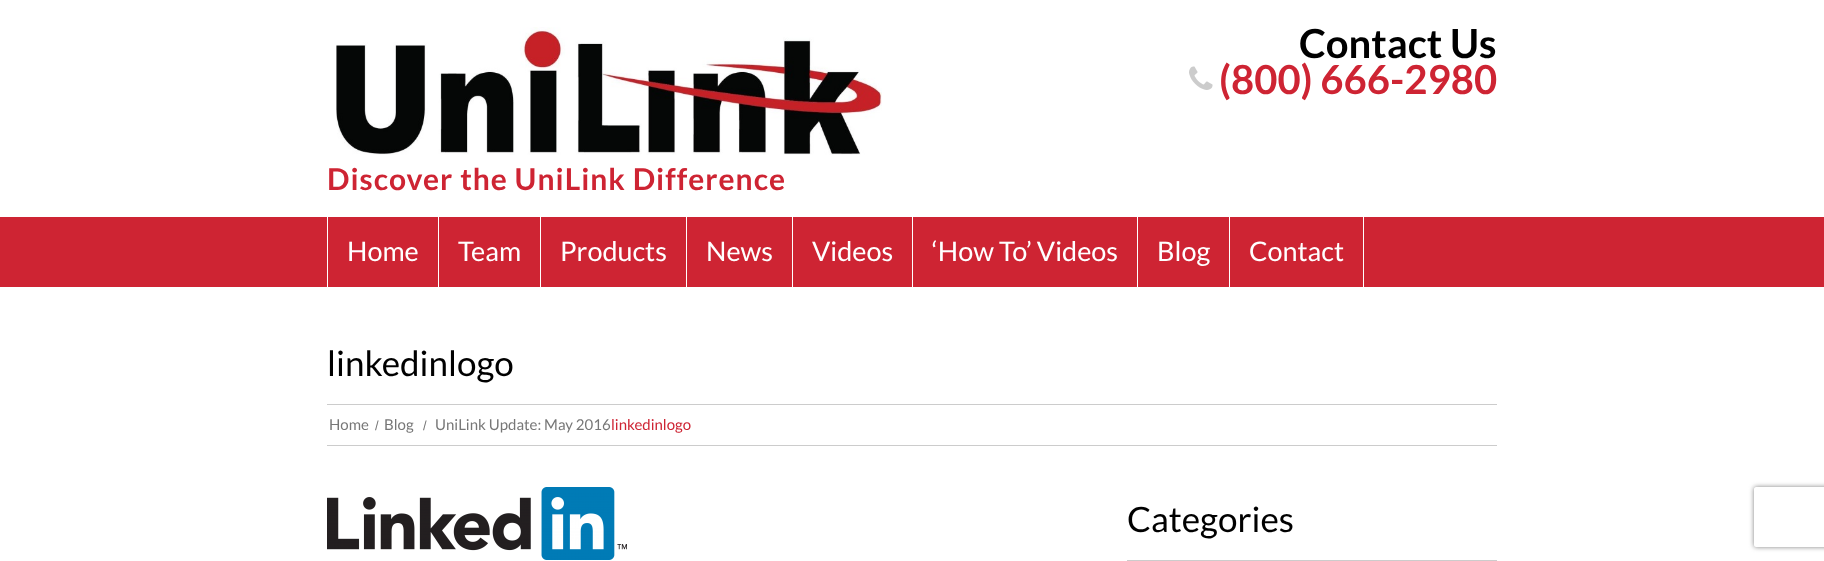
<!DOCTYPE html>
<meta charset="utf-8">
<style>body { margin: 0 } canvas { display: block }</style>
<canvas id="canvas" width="1824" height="561"></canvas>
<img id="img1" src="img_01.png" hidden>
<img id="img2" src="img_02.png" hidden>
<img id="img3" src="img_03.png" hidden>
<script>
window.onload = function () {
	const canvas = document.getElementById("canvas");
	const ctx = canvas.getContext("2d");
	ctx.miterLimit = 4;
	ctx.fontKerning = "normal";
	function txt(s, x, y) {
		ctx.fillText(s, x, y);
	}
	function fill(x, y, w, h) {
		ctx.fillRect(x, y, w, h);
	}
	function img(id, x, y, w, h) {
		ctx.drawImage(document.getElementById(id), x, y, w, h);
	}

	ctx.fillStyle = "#FFFFFF";
	fill(0, 0, 1824, 561);
	img("img1", 1189, 66, 24, 24);
	img("img2", 336, 27, 546, 128);
	ctx.fillStyle = "#CE2433";
	fill(0, 217, 1824, 70);
	ctx.fillStyle = "#FFFFFF";
	fill(438, 217, 1, 70);
	fill(327, 217, 1, 70);
	fill(540, 217, 1, 70);
	fill(686, 217, 1, 70);
	fill(792, 217, 1, 70);
	fill(912, 217, 1, 70);
	fill(1137, 217, 1, 70);
	fill(1229, 217, 1, 70);
	fill(1363, 217, 1, 70);
	ctx.fillStyle = "#CCCCCC";
	fill(327, 445, 1170, 1);
	fill(327, 404, 1170, 1);
	img("img3", 327, 487, 300, 73);
	fill(1127, 560, 370, 1);
	ctx.save();
	ctx.beginPath();
	ctx.moveTo(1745, 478);
	ctx.lineTo(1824, 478);
	ctx.lineTo(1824, 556);
	ctx.lineTo(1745, 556);
	ctx.closePath();
	ctx.moveTo(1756, 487);
	ctx.lineTo(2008, 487);
	ctx.bezierCurveTo(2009, 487, 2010, 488, 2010, 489);
	ctx.lineTo(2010, 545);
	ctx.bezierCurveTo(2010, 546, 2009, 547, 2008, 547);
	ctx.lineTo(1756, 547);
	ctx.bezierCurveTo(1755, 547, 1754, 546, 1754, 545);
	ctx.lineTo(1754, 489);
	ctx.bezierCurveTo(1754, 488, 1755, 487, 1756, 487);
	ctx.closePath();
	ctx.clip("evenodd");
	ctx.fillStyle = "#808080";
	ctx.filter = "blur(2.5px)";
	ctx.beginPath();
	ctx.roundRect(1754, 487, 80, 60, 2);
	ctx.fill();
	ctx.filter = "none";
	ctx.restore();
	ctx.font = "bold 40px Lato";
	ctx.fillStyle = "#000000";
	txt("Contact Us", 1299, 58);
	ctx.fillStyle = "#CE2433";
	txt("(800) 666-2980", 1219, 94);
	ctx.letterSpacing = "1px";
	ctx.font = "bold 30px Lato";
	txt("Discover the UniLink Difference", 327, 190);
	ctx.letterSpacing = "0px";
	ctx.font = "27px Lato";
	ctx.fillStyle = "#FFFFFF";
	txt("Home", 347, 261);
	txt("Team", 458, 261);
	txt("Products", 560, 261);
	txt("News", 706, 261);
	txt("Videos", 812, 261);
	txt("‘How To’ Videos", 932, 261);
	txt("Blog", 1157, 261);
	txt("Contact", 1249, 261);
	ctx.font = "35px Lato";
	ctx.fillStyle = "#000000";
	txt("linkedinlogo", 327, 376);
	ctx.font = "15px Lato";
	ctx.fillStyle = "#777777";
	txt("Home", 329, 430);
	ctx.font = "13px Liberation Sans";
	txt("/", 375, 430);
	ctx.font = "15px Lato";
	txt("Blog", 384, 430);
	ctx.font = "13px Liberation Sans";
	txt("/", 423, 430);
	ctx.font = "15px Lato";
	txt("UniLink Update: May 2016", 435, 430);
	ctx.fillStyle = "#CE2433";
	txt("linkedinlogo", 611, 430);
	ctx.font = "35px Lato";
	ctx.fillStyle = "#000000";
	txt("Categories", 1127, 532);
};
</script>
